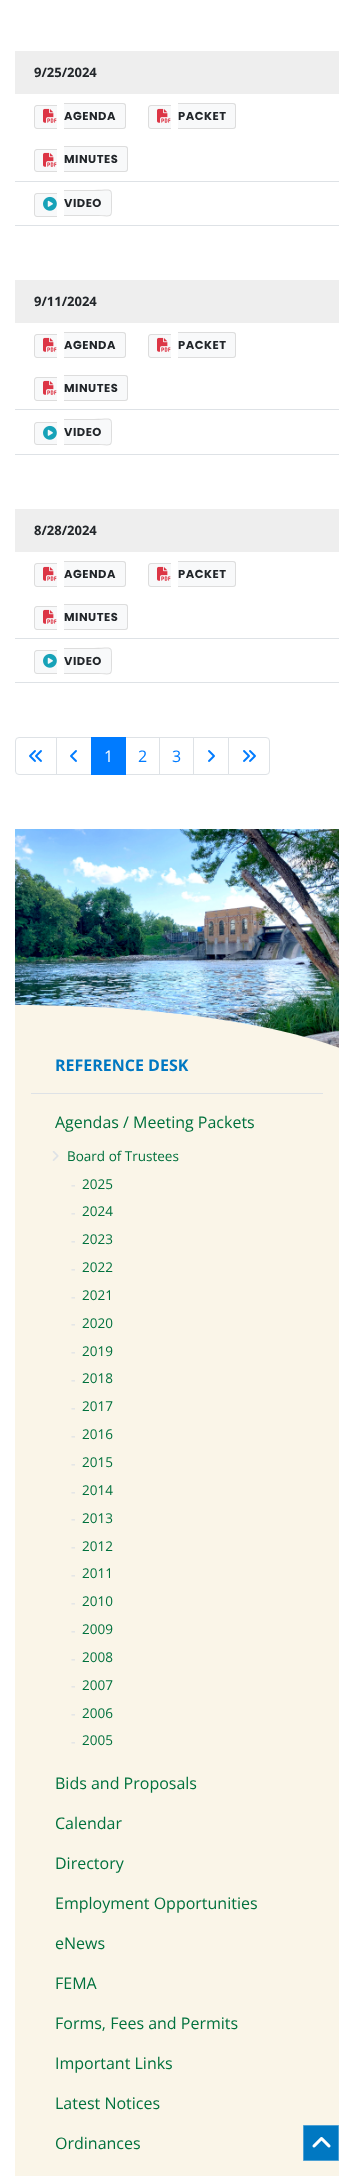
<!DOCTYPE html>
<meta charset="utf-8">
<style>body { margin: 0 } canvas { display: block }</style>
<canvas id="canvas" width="354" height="2176"></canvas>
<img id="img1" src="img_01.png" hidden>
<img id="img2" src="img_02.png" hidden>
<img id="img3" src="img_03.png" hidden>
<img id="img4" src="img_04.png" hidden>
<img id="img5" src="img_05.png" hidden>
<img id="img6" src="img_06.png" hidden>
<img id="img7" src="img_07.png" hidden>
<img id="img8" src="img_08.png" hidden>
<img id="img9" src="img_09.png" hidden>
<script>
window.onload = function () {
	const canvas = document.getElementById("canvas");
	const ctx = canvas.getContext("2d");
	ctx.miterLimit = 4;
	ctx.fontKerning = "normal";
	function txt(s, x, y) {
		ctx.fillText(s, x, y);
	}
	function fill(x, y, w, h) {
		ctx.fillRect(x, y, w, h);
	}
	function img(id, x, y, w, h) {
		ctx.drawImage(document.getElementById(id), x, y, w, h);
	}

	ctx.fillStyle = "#FFFFFF";
	fill(0, 0, 354, 2176);
	ctx.fillStyle = "#EEEEEE";
	fill(15, 51, 324, 43);
	ctx.fillStyle = "#F8F9FA";
	ctx.beginPath();
	ctx.roundRect(34, 105, 23, 24, [3, 0, 0, 3]);
	ctx.fill();
	ctx.fillStyle = "#DDDDDD";
	ctx.beginPath();
	ctx.moveTo(37, 105);
	ctx.lineTo(57, 105);
	ctx.lineTo(57, 129);
	ctx.lineTo(37, 129);
	ctx.bezierCurveTo(35.5, 129, 34, 127.5, 34, 126);
	ctx.lineTo(34, 108);
	ctx.bezierCurveTo(34, 106.5, 35.5, 105, 37, 105);
	ctx.closePath();
	ctx.moveTo(37, 106);
	ctx.lineTo(57, 106);
	ctx.lineTo(57, 128);
	ctx.lineTo(37, 128);
	ctx.bezierCurveTo(36, 128, 35, 127, 35, 126);
	ctx.lineTo(35, 108);
	ctx.bezierCurveTo(35, 107, 36, 106, 37, 106);
	ctx.closePath();
	ctx.fill("evenodd");
	ctx.fillStyle = "#F8F9FA";
	ctx.beginPath();
	ctx.roundRect(64, 103, 62, 26, [0, 3, 3, 0]);
	ctx.fill();
	ctx.fillStyle = "#DDDDDD";
	ctx.beginPath();
	ctx.moveTo(64, 103);
	ctx.lineTo(123, 103);
	ctx.bezierCurveTo(125, 103, 126, 104, 126, 106);
	ctx.lineTo(126, 126);
	ctx.bezierCurveTo(126, 128, 125, 129, 123, 129);
	ctx.lineTo(64, 129);
	ctx.closePath();
	ctx.moveTo(64, 104);
	ctx.lineTo(123, 104);
	ctx.bezierCurveTo(124, 104, 125, 105, 125, 106);
	ctx.lineTo(125, 126);
	ctx.bezierCurveTo(125, 127, 124, 128, 123, 128);
	ctx.lineTo(64, 128);
	ctx.closePath();
	ctx.fill("evenodd");
	img("img1", 43, 108, 14, 15);
	ctx.fillStyle = "#F8F9FA";
	ctx.beginPath();
	ctx.roundRect(148, 105, 23, 24, [3, 0, 0, 3]);
	ctx.fill();
	ctx.fillStyle = "#DDDDDD";
	ctx.beginPath();
	ctx.moveTo(151, 105);
	ctx.lineTo(171, 105);
	ctx.lineTo(171, 129);
	ctx.lineTo(151, 129);
	ctx.bezierCurveTo(149.5, 129, 148, 127.5, 148, 126);
	ctx.lineTo(148, 108);
	ctx.bezierCurveTo(148, 106.5, 149.5, 105, 151, 105);
	ctx.closePath();
	ctx.moveTo(151, 106);
	ctx.lineTo(171, 106);
	ctx.lineTo(171, 128);
	ctx.lineTo(151, 128);
	ctx.bezierCurveTo(150, 128, 149, 127, 149, 126);
	ctx.lineTo(149, 108);
	ctx.bezierCurveTo(149, 107, 150, 106, 151, 106);
	ctx.closePath();
	ctx.fill("evenodd");
	ctx.fillStyle = "#F8F9FA";
	ctx.beginPath();
	ctx.roundRect(178, 103, 58, 26, [0, 3, 3, 0]);
	ctx.fill();
	ctx.fillStyle = "#DDDDDD";
	ctx.beginPath();
	ctx.moveTo(178, 103);
	ctx.lineTo(233, 103);
	ctx.bezierCurveTo(235, 103, 236, 104, 236, 106);
	ctx.lineTo(236, 126);
	ctx.bezierCurveTo(236, 128, 235, 129, 233, 129);
	ctx.lineTo(178, 129);
	ctx.closePath();
	ctx.moveTo(178, 104);
	ctx.lineTo(233, 104);
	ctx.bezierCurveTo(234, 104, 235, 105, 235, 106);
	ctx.lineTo(235, 126);
	ctx.bezierCurveTo(235, 127, 234, 128, 233, 128);
	ctx.lineTo(178, 128);
	ctx.closePath();
	ctx.fill("evenodd");
	img("img1", 157, 108, 14, 15);
	ctx.fillStyle = "#F8F9FA";
	ctx.beginPath();
	ctx.roundRect(34, 149, 23, 23, [3, 0, 0, 3]);
	ctx.fill();
	ctx.fillStyle = "#DDDDDD";
	ctx.beginPath();
	ctx.moveTo(37, 149);
	ctx.lineTo(57, 149);
	ctx.lineTo(57, 172);
	ctx.lineTo(37, 172);
	ctx.bezierCurveTo(35.5, 172, 34, 170.5, 34, 169);
	ctx.lineTo(34, 152);
	ctx.bezierCurveTo(34, 150.5, 35.5, 149, 37, 149);
	ctx.closePath();
	ctx.moveTo(37, 150);
	ctx.lineTo(57, 150);
	ctx.lineTo(57, 171);
	ctx.lineTo(37, 171);
	ctx.bezierCurveTo(36, 171, 35, 170, 35, 169);
	ctx.lineTo(35, 152);
	ctx.bezierCurveTo(35, 151, 36, 150, 37, 150);
	ctx.closePath();
	ctx.fill("evenodd");
	ctx.fillStyle = "#F8F9FA";
	ctx.beginPath();
	ctx.roundRect(64, 146, 64, 26, [0, 3, 3, 0]);
	ctx.fill();
	ctx.fillStyle = "#DDDDDD";
	ctx.beginPath();
	ctx.moveTo(64, 146);
	ctx.lineTo(125, 146);
	ctx.bezierCurveTo(127, 146, 128, 147, 128, 149);
	ctx.lineTo(128, 169);
	ctx.bezierCurveTo(128, 171, 127, 172, 125, 172);
	ctx.lineTo(64, 172);
	ctx.closePath();
	ctx.moveTo(64, 147);
	ctx.lineTo(125, 147);
	ctx.bezierCurveTo(126, 147, 127, 148, 127, 149);
	ctx.lineTo(127, 169);
	ctx.bezierCurveTo(127, 170, 126, 171, 125, 171);
	ctx.lineTo(64, 171);
	ctx.closePath();
	ctx.fill("evenodd");
	img("img1", 43, 152, 14, 15);
	ctx.fillStyle = "#DEE2E6";
	fill(15, 181, 324, 1);
	ctx.fillStyle = "#F8F9FA";
	ctx.beginPath();
	ctx.roundRect(34, 193, 23, 24, [3, 0, 0, 3]);
	ctx.fill();
	ctx.fillStyle = "#DDDDDD";
	ctx.beginPath();
	ctx.moveTo(37, 193);
	ctx.lineTo(57, 193);
	ctx.lineTo(57, 217);
	ctx.lineTo(37, 217);
	ctx.bezierCurveTo(35.5, 217, 34, 215.5, 34, 214);
	ctx.lineTo(34, 196);
	ctx.bezierCurveTo(34, 194.5, 35.5, 193, 37, 193);
	ctx.closePath();
	ctx.moveTo(37, 194);
	ctx.lineTo(57, 194);
	ctx.lineTo(57, 216);
	ctx.lineTo(37, 216);
	ctx.bezierCurveTo(36, 216, 35, 215, 35, 214);
	ctx.lineTo(35, 196);
	ctx.bezierCurveTo(35, 195, 36, 194, 37, 194);
	ctx.closePath();
	ctx.fill("evenodd");
	ctx.fillStyle = "#F8F9FA";
	ctx.beginPath();
	ctx.roundRect(64, 190, 48, 26, [0, 3, 3, 0]);
	ctx.fill();
	ctx.fillStyle = "#DDDDDD";
	ctx.beginPath();
	ctx.moveTo(64, 190);
	ctx.lineTo(94, 190);
	ctx.bezierCurveTo(113, 190, 112, 186, 112, 203);
	ctx.bezierCurveTo(112, 220, 113, 216, 94, 216);
	ctx.lineTo(64, 216);
	ctx.closePath();
	ctx.moveTo(64, 191);
	ctx.lineTo(94, 191);
	ctx.bezierCurveTo(113, 191, 111, 187, 111, 203);
	ctx.bezierCurveTo(111, 219, 113, 215, 94, 215);
	ctx.lineTo(64, 215);
	ctx.closePath();
	ctx.fill("evenodd");
	img("img2", 43, 196, 14, 15);
	ctx.fillStyle = "#DEE2E6";
	fill(15, 225, 324, 1);
	ctx.fillStyle = "#EEEEEE";
	fill(15, 280, 324, 43);
	ctx.fillStyle = "#F8F9FA";
	ctx.beginPath();
	ctx.roundRect(34, 334, 23, 24, [3, 0, 0, 3]);
	ctx.fill();
	ctx.fillStyle = "#DDDDDD";
	ctx.beginPath();
	ctx.moveTo(37, 334);
	ctx.lineTo(57, 334);
	ctx.lineTo(57, 358);
	ctx.lineTo(37, 358);
	ctx.bezierCurveTo(35.5, 358, 34, 356.5, 34, 355);
	ctx.lineTo(34, 337);
	ctx.bezierCurveTo(34, 335.5, 35.5, 334, 37, 334);
	ctx.closePath();
	ctx.moveTo(37, 335);
	ctx.lineTo(57, 335);
	ctx.lineTo(57, 357);
	ctx.lineTo(37, 357);
	ctx.bezierCurveTo(36, 357, 35, 356, 35, 355);
	ctx.lineTo(35, 337);
	ctx.bezierCurveTo(35, 336, 36, 335, 37, 335);
	ctx.closePath();
	ctx.fill("evenodd");
	ctx.fillStyle = "#F8F9FA";
	ctx.beginPath();
	ctx.roundRect(64, 332, 62, 26, [0, 3, 3, 0]);
	ctx.fill();
	ctx.fillStyle = "#DDDDDD";
	ctx.beginPath();
	ctx.moveTo(64, 332);
	ctx.lineTo(123, 332);
	ctx.bezierCurveTo(125, 332, 126, 333, 126, 335);
	ctx.lineTo(126, 355);
	ctx.bezierCurveTo(126, 357, 125, 358, 123, 358);
	ctx.lineTo(64, 358);
	ctx.closePath();
	ctx.moveTo(64, 333);
	ctx.lineTo(123, 333);
	ctx.bezierCurveTo(124, 333, 125, 334, 125, 335);
	ctx.lineTo(125, 355);
	ctx.bezierCurveTo(125, 356, 124, 357, 123, 357);
	ctx.lineTo(64, 357);
	ctx.closePath();
	ctx.fill("evenodd");
	img("img1", 43, 337, 14, 15);
	ctx.fillStyle = "#F8F9FA";
	ctx.beginPath();
	ctx.roundRect(148, 334, 23, 24, [3, 0, 0, 3]);
	ctx.fill();
	ctx.fillStyle = "#DDDDDD";
	ctx.beginPath();
	ctx.moveTo(151, 334);
	ctx.lineTo(171, 334);
	ctx.lineTo(171, 358);
	ctx.lineTo(151, 358);
	ctx.bezierCurveTo(149.5, 358, 148, 356.5, 148, 355);
	ctx.lineTo(148, 337);
	ctx.bezierCurveTo(148, 335.5, 149.5, 334, 151, 334);
	ctx.closePath();
	ctx.moveTo(151, 335);
	ctx.lineTo(171, 335);
	ctx.lineTo(171, 357);
	ctx.lineTo(151, 357);
	ctx.bezierCurveTo(150, 357, 149, 356, 149, 355);
	ctx.lineTo(149, 337);
	ctx.bezierCurveTo(149, 336, 150, 335, 151, 335);
	ctx.closePath();
	ctx.fill("evenodd");
	ctx.fillStyle = "#F8F9FA";
	ctx.beginPath();
	ctx.roundRect(178, 332, 58, 26, [0, 3, 3, 0]);
	ctx.fill();
	ctx.fillStyle = "#DDDDDD";
	ctx.beginPath();
	ctx.moveTo(178, 332);
	ctx.lineTo(233, 332);
	ctx.bezierCurveTo(235, 332, 236, 333, 236, 335);
	ctx.lineTo(236, 355);
	ctx.bezierCurveTo(236, 357, 235, 358, 233, 358);
	ctx.lineTo(178, 358);
	ctx.closePath();
	ctx.moveTo(178, 333);
	ctx.lineTo(233, 333);
	ctx.bezierCurveTo(234, 333, 235, 334, 235, 335);
	ctx.lineTo(235, 355);
	ctx.bezierCurveTo(235, 356, 234, 357, 233, 357);
	ctx.lineTo(178, 357);
	ctx.closePath();
	ctx.fill("evenodd");
	img("img1", 157, 337, 14, 15);
	ctx.fillStyle = "#F8F9FA";
	ctx.beginPath();
	ctx.roundRect(34, 377, 23, 24, [3, 0, 0, 3]);
	ctx.fill();
	ctx.fillStyle = "#DDDDDD";
	ctx.beginPath();
	ctx.moveTo(37, 377);
	ctx.lineTo(57, 377);
	ctx.lineTo(57, 401);
	ctx.lineTo(37, 401);
	ctx.bezierCurveTo(35.5, 401, 34, 399.5, 34, 398);
	ctx.lineTo(34, 380);
	ctx.bezierCurveTo(34, 378.5, 35.5, 377, 37, 377);
	ctx.closePath();
	ctx.moveTo(37, 378);
	ctx.lineTo(57, 378);
	ctx.lineTo(57, 400);
	ctx.lineTo(37, 400);
	ctx.bezierCurveTo(36, 400, 35, 399, 35, 398);
	ctx.lineTo(35, 380);
	ctx.bezierCurveTo(35, 379, 36, 378, 37, 378);
	ctx.closePath();
	ctx.fill("evenodd");
	ctx.fillStyle = "#F8F9FA";
	ctx.beginPath();
	ctx.roundRect(64, 375, 64, 26, [0, 3, 3, 0]);
	ctx.fill();
	ctx.fillStyle = "#DDDDDD";
	ctx.beginPath();
	ctx.moveTo(64, 375);
	ctx.lineTo(125, 375);
	ctx.bezierCurveTo(127, 375, 128, 376, 128, 378);
	ctx.lineTo(128, 398);
	ctx.bezierCurveTo(128, 400, 127, 401, 125, 401);
	ctx.lineTo(64, 401);
	ctx.closePath();
	ctx.moveTo(64, 376);
	ctx.lineTo(125, 376);
	ctx.bezierCurveTo(126, 376, 127, 377, 127, 378);
	ctx.lineTo(127, 398);
	ctx.bezierCurveTo(127, 399, 126, 400, 125, 400);
	ctx.lineTo(64, 400);
	ctx.closePath();
	ctx.fill("evenodd");
	img("img1", 43, 380, 14, 15);
	ctx.fillStyle = "#DEE2E6";
	fill(15, 409, 324, 1);
	ctx.fillStyle = "#F8F9FA";
	ctx.beginPath();
	ctx.roundRect(34, 422, 23, 23, [3, 0, 0, 3]);
	ctx.fill();
	ctx.fillStyle = "#DDDDDD";
	ctx.beginPath();
	ctx.moveTo(37, 422);
	ctx.lineTo(57, 422);
	ctx.lineTo(57, 445);
	ctx.lineTo(37, 445);
	ctx.bezierCurveTo(35.5, 445, 34, 443.5, 34, 442);
	ctx.lineTo(34, 425);
	ctx.bezierCurveTo(34, 423.5, 35.5, 422, 37, 422);
	ctx.closePath();
	ctx.moveTo(37, 423);
	ctx.lineTo(57, 423);
	ctx.lineTo(57, 444);
	ctx.lineTo(37, 444);
	ctx.bezierCurveTo(36, 444, 35, 443, 35, 442);
	ctx.lineTo(35, 425);
	ctx.bezierCurveTo(35, 424, 36, 423, 37, 423);
	ctx.closePath();
	ctx.fill("evenodd");
	ctx.fillStyle = "#F8F9FA";
	ctx.beginPath();
	ctx.roundRect(64, 419, 48, 26, [0, 3, 3, 0]);
	ctx.fill();
	ctx.fillStyle = "#DDDDDD";
	ctx.beginPath();
	ctx.moveTo(64, 419);
	ctx.lineTo(94, 419);
	ctx.bezierCurveTo(113, 419, 112, 415, 112, 432);
	ctx.bezierCurveTo(112, 449, 113, 445, 94, 445);
	ctx.lineTo(64, 445);
	ctx.closePath();
	ctx.moveTo(64, 420);
	ctx.lineTo(94, 420);
	ctx.bezierCurveTo(113, 420, 111, 416, 111, 432);
	ctx.bezierCurveTo(111, 448, 113, 444, 94, 444);
	ctx.lineTo(64, 444);
	ctx.closePath();
	ctx.fill("evenodd");
	img("img2", 43, 425, 14, 15);
	ctx.fillStyle = "#DEE2E6";
	fill(15, 454, 324, 1);
	ctx.fillStyle = "#EEEEEE";
	fill(15, 509, 324, 43);
	ctx.fillStyle = "#F8F9FA";
	ctx.beginPath();
	ctx.roundRect(34, 563, 23, 24, [3, 0, 0, 3]);
	ctx.fill();
	ctx.fillStyle = "#DDDDDD";
	ctx.beginPath();
	ctx.moveTo(37, 563);
	ctx.lineTo(57, 563);
	ctx.lineTo(57, 587);
	ctx.lineTo(37, 587);
	ctx.bezierCurveTo(35.5, 587, 34, 585.5, 34, 584);
	ctx.lineTo(34, 566);
	ctx.bezierCurveTo(34, 564.5, 35.5, 563, 37, 563);
	ctx.closePath();
	ctx.moveTo(37, 564);
	ctx.lineTo(57, 564);
	ctx.lineTo(57, 586);
	ctx.lineTo(37, 586);
	ctx.bezierCurveTo(36, 586, 35, 585, 35, 584);
	ctx.lineTo(35, 566);
	ctx.bezierCurveTo(35, 565, 36, 564, 37, 564);
	ctx.closePath();
	ctx.fill("evenodd");
	ctx.fillStyle = "#F8F9FA";
	ctx.beginPath();
	ctx.roundRect(64, 561, 62, 26, [0, 3, 3, 0]);
	ctx.fill();
	ctx.fillStyle = "#DDDDDD";
	ctx.beginPath();
	ctx.moveTo(64, 561);
	ctx.lineTo(123, 561);
	ctx.bezierCurveTo(125, 561, 126, 562, 126, 564);
	ctx.lineTo(126, 584);
	ctx.bezierCurveTo(126, 586, 125, 587, 123, 587);
	ctx.lineTo(64, 587);
	ctx.closePath();
	ctx.moveTo(64, 562);
	ctx.lineTo(123, 562);
	ctx.bezierCurveTo(124, 562, 125, 563, 125, 564);
	ctx.lineTo(125, 584);
	ctx.bezierCurveTo(125, 585, 124, 586, 123, 586);
	ctx.lineTo(64, 586);
	ctx.closePath();
	ctx.fill("evenodd");
	img("img1", 43, 566, 14, 15);
	ctx.fillStyle = "#F8F9FA";
	ctx.beginPath();
	ctx.roundRect(148, 563, 23, 24, [3, 0, 0, 3]);
	ctx.fill();
	ctx.fillStyle = "#DDDDDD";
	ctx.beginPath();
	ctx.moveTo(151, 563);
	ctx.lineTo(171, 563);
	ctx.lineTo(171, 587);
	ctx.lineTo(151, 587);
	ctx.bezierCurveTo(149.5, 587, 148, 585.5, 148, 584);
	ctx.lineTo(148, 566);
	ctx.bezierCurveTo(148, 564.5, 149.5, 563, 151, 563);
	ctx.closePath();
	ctx.moveTo(151, 564);
	ctx.lineTo(171, 564);
	ctx.lineTo(171, 586);
	ctx.lineTo(151, 586);
	ctx.bezierCurveTo(150, 586, 149, 585, 149, 584);
	ctx.lineTo(149, 566);
	ctx.bezierCurveTo(149, 565, 150, 564, 151, 564);
	ctx.closePath();
	ctx.fill("evenodd");
	ctx.fillStyle = "#F8F9FA";
	ctx.beginPath();
	ctx.roundRect(178, 561, 58, 26, [0, 3, 3, 0]);
	ctx.fill();
	ctx.fillStyle = "#DDDDDD";
	ctx.beginPath();
	ctx.moveTo(178, 561);
	ctx.lineTo(233, 561);
	ctx.bezierCurveTo(235, 561, 236, 562, 236, 564);
	ctx.lineTo(236, 584);
	ctx.bezierCurveTo(236, 586, 235, 587, 233, 587);
	ctx.lineTo(178, 587);
	ctx.closePath();
	ctx.moveTo(178, 562);
	ctx.lineTo(233, 562);
	ctx.bezierCurveTo(234, 562, 235, 563, 235, 564);
	ctx.lineTo(235, 584);
	ctx.bezierCurveTo(235, 585, 234, 586, 233, 586);
	ctx.lineTo(178, 586);
	ctx.closePath();
	ctx.fill("evenodd");
	img("img1", 157, 566, 14, 15);
	ctx.fillStyle = "#F8F9FA";
	ctx.beginPath();
	ctx.roundRect(34, 606, 23, 24, [3, 0, 0, 3]);
	ctx.fill();
	ctx.fillStyle = "#DDDDDD";
	ctx.beginPath();
	ctx.moveTo(37, 606);
	ctx.lineTo(57, 606);
	ctx.lineTo(57, 630);
	ctx.lineTo(37, 630);
	ctx.bezierCurveTo(35.5, 630, 34, 628.5, 34, 627);
	ctx.lineTo(34, 609);
	ctx.bezierCurveTo(34, 607.5, 35.5, 606, 37, 606);
	ctx.closePath();
	ctx.moveTo(37, 607);
	ctx.lineTo(57, 607);
	ctx.lineTo(57, 629);
	ctx.lineTo(37, 629);
	ctx.bezierCurveTo(36, 629, 35, 628, 35, 627);
	ctx.lineTo(35, 609);
	ctx.bezierCurveTo(35, 608, 36, 607, 37, 607);
	ctx.closePath();
	ctx.fill("evenodd");
	ctx.fillStyle = "#F8F9FA";
	ctx.beginPath();
	ctx.roundRect(64, 604, 64, 26, [0, 3, 3, 0]);
	ctx.fill();
	ctx.fillStyle = "#DDDDDD";
	ctx.beginPath();
	ctx.moveTo(64, 604);
	ctx.lineTo(125, 604);
	ctx.bezierCurveTo(127, 604, 128, 605, 128, 607);
	ctx.lineTo(128, 627);
	ctx.bezierCurveTo(128, 629, 127, 630, 125, 630);
	ctx.lineTo(64, 630);
	ctx.closePath();
	ctx.moveTo(64, 605);
	ctx.lineTo(125, 605);
	ctx.bezierCurveTo(126, 605, 127, 606, 127, 607);
	ctx.lineTo(127, 627);
	ctx.bezierCurveTo(127, 628, 126, 629, 125, 629);
	ctx.lineTo(64, 629);
	ctx.closePath();
	ctx.fill("evenodd");
	img("img1", 43, 609, 14, 15);
	ctx.fillStyle = "#DEE2E6";
	fill(15, 638, 324, 1);
	ctx.fillStyle = "#F8F9FA";
	ctx.beginPath();
	ctx.roundRect(34, 650, 23, 24, [3, 0, 0, 3]);
	ctx.fill();
	ctx.fillStyle = "#DDDDDD";
	ctx.beginPath();
	ctx.moveTo(37, 650);
	ctx.lineTo(57, 650);
	ctx.lineTo(57, 674);
	ctx.lineTo(37, 674);
	ctx.bezierCurveTo(35.5, 674, 34, 672.5, 34, 671);
	ctx.lineTo(34, 653);
	ctx.bezierCurveTo(34, 651.5, 35.5, 650, 37, 650);
	ctx.closePath();
	ctx.moveTo(37, 651);
	ctx.lineTo(57, 651);
	ctx.lineTo(57, 673);
	ctx.lineTo(37, 673);
	ctx.bezierCurveTo(36, 673, 35, 672, 35, 671);
	ctx.lineTo(35, 653);
	ctx.bezierCurveTo(35, 652, 36, 651, 37, 651);
	ctx.closePath();
	ctx.fill("evenodd");
	ctx.fillStyle = "#F8F9FA";
	ctx.beginPath();
	ctx.roundRect(64, 648, 48, 26, [0, 3, 3, 0]);
	ctx.fill();
	ctx.fillStyle = "#DDDDDD";
	ctx.beginPath();
	ctx.moveTo(64, 648);
	ctx.lineTo(94, 648);
	ctx.bezierCurveTo(113, 648, 112, 644, 112, 661);
	ctx.bezierCurveTo(112, 678, 113, 674, 94, 674);
	ctx.lineTo(64, 674);
	ctx.closePath();
	ctx.moveTo(64, 649);
	ctx.lineTo(94, 649);
	ctx.bezierCurveTo(113, 649, 111, 645, 111, 661);
	ctx.bezierCurveTo(111, 677, 113, 673, 94, 673);
	ctx.lineTo(64, 673);
	ctx.closePath();
	ctx.fill("evenodd");
	img("img2", 43, 653, 14, 15);
	ctx.fillStyle = "#DEE2E6";
	fill(15, 682, 324, 1);
	ctx.beginPath();
	ctx.roundRect(15.5, 737.5, 41, 37, [3.5, 0, 0, 3.5]);
	ctx.strokeStyle = "#DEE2E6";
	ctx.stroke();
	img("img3", 29, 750, 13, 12);
	ctx.strokeRect(56.5, 737.5, 35, 37);
	img("img4", 70, 750, 7, 12);
	ctx.strokeRect(125.5, 737.5, 34, 37);
	ctx.fillStyle = "#007BFF";
	fill(91, 737, 35, 38);
	ctx.strokeRect(159.5, 737.5, 34, 37);
	ctx.strokeRect(193.5, 737.5, 35, 37);
	img("img5", 208, 750, 7, 12);
	ctx.fillStyle = "#FFFFFF";
	ctx.beginPath();
	ctx.roundRect(228.5, 737.5, 41, 37, [0, 3.5, 3.5, 0]);
	ctx.fill();
	ctx.stroke();
	img("img6", 243, 750, 13, 12);
	img("img7", 15, 829, 324, 219);
	ctx.fillStyle = "#FAF5E8";
	fill(15, 1101, 324, 1075);
	ctx.save();
	ctx.beginPath();
	ctx.rect(15, 829, 324, 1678);
	ctx.clip();
	ctx.beginPath();
	ctx.moveTo(15, 1005);
	ctx.bezierCurveTo(230, 1005, 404, 1048, 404, 1101);
	ctx.lineTo(15, 1101);
	ctx.closePath();
	ctx.fill();
	ctx.restore();
	ctx.fillStyle = "#DEE2E6";
	fill(31, 1093, 292, 1);
	img("img8", 52, 1151, 7, 10);
	ctx.fillStyle = "#0078C2";
	ctx.beginPath();
	ctx.rect(303.5, 2125.5, 35, 35);
	ctx.fill();
	ctx.strokeStyle = "#4DA1D4";
	ctx.stroke();
	img("img9", 312, 2137, 19, 11);
	ctx.font = "bold 13px Open Sans";
	ctx.fillStyle = "#212529";
	txt("9/25/2024", 34, 77);
	ctx.letterSpacing = "0.5px";
	ctx.font = "bold 11.5px Poppins";
	txt("AGENDA", 64, 120);
	txt("PACKET", 178, 120);
	txt("MINUTES", 64, 163);
	txt("VIDEO", 64, 207);
	ctx.letterSpacing = "0px";
	ctx.font = "bold 13px Open Sans";
	txt("9/11/2024", 34, 306);
	ctx.letterSpacing = "0.5px";
	ctx.font = "bold 11.5px Poppins";
	txt("AGENDA", 64, 349);
	txt("PACKET", 178, 349);
	txt("MINUTES", 64, 392);
	txt("VIDEO", 64, 436);
	ctx.letterSpacing = "0px";
	ctx.font = "bold 13px Open Sans";
	txt("8/28/2024", 34, 535);
	ctx.letterSpacing = "0.5px";
	ctx.font = "bold 11.5px Poppins";
	txt("AGENDA", 64, 578);
	txt("PACKET", 178, 578);
	txt("MINUTES", 64, 621);
	txt("VIDEO", 64, 665);
	ctx.letterSpacing = "0px";
	ctx.font = "16px Open Sans";
	ctx.fillStyle = "#FFFFFF";
	txt("1", 104, 762);
	ctx.fillStyle = "#007BFF";
	txt("2", 138, 762);
	txt("3", 172, 762);
	ctx.font = "bold 16px Open Sans";
	ctx.fillStyle = "#0078C2";
	txt("REFERENCE DESK", 55, 1071);
	ctx.font = "16px Open Sans";
	ctx.fillStyle = "#00713D";
	txt("Agendas / Meeting Packets", 55, 1128);
	ctx.font = "13.5px Open Sans";
	txt("Board of Trustees", 67, 1161);
	ctx.font = "bold 13.5px Liberation Serif";
	ctx.fillStyle = "#DEE2E6";
	txt("-", 71, 1189);
	ctx.font = "13.5px Open Sans";
	ctx.fillStyle = "#00713D";
	txt("2025", 82, 1189);
	ctx.font = "bold 13.5px Liberation Serif";
	ctx.fillStyle = "#DEE2E6";
	txt("-", 71, 1217);
	ctx.font = "13.5px Open Sans";
	ctx.fillStyle = "#00713D";
	txt("2024", 82, 1216);
	ctx.font = "bold 13.5px Liberation Serif";
	ctx.fillStyle = "#DEE2E6";
	txt("-", 71, 1245);
	ctx.font = "13.5px Open Sans";
	ctx.fillStyle = "#00713D";
	txt("2023", 82, 1244);
	ctx.font = "bold 13.5px Liberation Serif";
	ctx.fillStyle = "#DEE2E6";
	txt("-", 71, 1273);
	ctx.font = "13.5px Open Sans";
	ctx.fillStyle = "#00713D";
	txt("2022", 82, 1272);
	ctx.font = "bold 13.5px Liberation Serif";
	ctx.fillStyle = "#DEE2E6";
	txt("-", 71, 1301);
	ctx.font = "13.5px Open Sans";
	ctx.fillStyle = "#00713D";
	txt("2021", 82, 1300);
	ctx.font = "bold 13.5px Liberation Serif";
	ctx.fillStyle = "#DEE2E6";
	txt("-", 71, 1328);
	ctx.font = "13.5px Open Sans";
	ctx.fillStyle = "#00713D";
	txt("2020", 82, 1328);
	ctx.font = "bold 13.5px Liberation Serif";
	ctx.fillStyle = "#DEE2E6";
	txt("-", 71, 1356);
	ctx.font = "13.5px Open Sans";
	ctx.fillStyle = "#00713D";
	txt("2019", 82, 1356);
	ctx.font = "bold 13.5px Liberation Serif";
	ctx.fillStyle = "#DEE2E6";
	txt("-", 71, 1384);
	ctx.font = "13.5px Open Sans";
	ctx.fillStyle = "#00713D";
	txt("2018", 82, 1383);
	ctx.font = "bold 13.5px Liberation Serif";
	ctx.fillStyle = "#DEE2E6";
	txt("-", 71, 1412);
	ctx.font = "13.5px Open Sans";
	ctx.fillStyle = "#00713D";
	txt("2017", 82, 1411);
	ctx.font = "bold 13.5px Liberation Serif";
	ctx.fillStyle = "#DEE2E6";
	txt("-", 71, 1440);
	ctx.font = "13.5px Open Sans";
	ctx.fillStyle = "#00713D";
	txt("2016", 82, 1439);
	ctx.font = "bold 13.5px Liberation Serif";
	ctx.fillStyle = "#DEE2E6";
	txt("-", 71, 1468);
	ctx.font = "13.5px Open Sans";
	ctx.fillStyle = "#00713D";
	txt("2015", 82, 1467);
	ctx.font = "bold 13.5px Liberation Serif";
	ctx.fillStyle = "#DEE2E6";
	txt("-", 71, 1496);
	ctx.font = "13.5px Open Sans";
	ctx.fillStyle = "#00713D";
	txt("2014", 82, 1495);
	ctx.font = "bold 13.5px Liberation Serif";
	ctx.fillStyle = "#DEE2E6";
	txt("-", 71, 1523);
	ctx.font = "13.5px Open Sans";
	ctx.fillStyle = "#00713D";
	txt("2013", 82, 1523);
	ctx.font = "bold 13.5px Liberation Serif";
	ctx.fillStyle = "#DEE2E6";
	txt("-", 71, 1551);
	ctx.font = "13.5px Open Sans";
	ctx.fillStyle = "#00713D";
	txt("2012", 82, 1551);
	ctx.font = "bold 13.5px Liberation Serif";
	ctx.fillStyle = "#DEE2E6";
	txt("-", 71, 1579);
	ctx.font = "13.5px Open Sans";
	ctx.fillStyle = "#00713D";
	txt("2011", 82, 1578);
	ctx.font = "bold 13.5px Liberation Serif";
	ctx.fillStyle = "#DEE2E6";
	txt("-", 71, 1607);
	ctx.font = "13.5px Open Sans";
	ctx.fillStyle = "#00713D";
	txt("2010", 82, 1606);
	ctx.font = "bold 13.5px Liberation Serif";
	ctx.fillStyle = "#DEE2E6";
	txt("-", 71, 1635);
	ctx.font = "13.5px Open Sans";
	ctx.fillStyle = "#00713D";
	txt("2009", 82, 1634);
	ctx.font = "bold 13.5px Liberation Serif";
	ctx.fillStyle = "#DEE2E6";
	txt("-", 71, 1663);
	ctx.font = "13.5px Open Sans";
	ctx.fillStyle = "#00713D";
	txt("2008", 82, 1662);
	ctx.font = "bold 13.5px Liberation Serif";
	ctx.fillStyle = "#DEE2E6";
	txt("-", 71, 1690);
	ctx.font = "13.5px Open Sans";
	ctx.fillStyle = "#00713D";
	txt("2007", 82, 1690);
	ctx.font = "bold 13.5px Liberation Serif";
	ctx.fillStyle = "#DEE2E6";
	txt("-", 71, 1718);
	ctx.font = "13.5px Open Sans";
	ctx.fillStyle = "#00713D";
	txt("2006", 82, 1718);
	ctx.font = "bold 13.5px Liberation Serif";
	ctx.fillStyle = "#DEE2E6";
	txt("-", 71, 1746);
	ctx.font = "13.5px Open Sans";
	ctx.fillStyle = "#00713D";
	txt("2005", 82, 1745);
	ctx.font = "16px Open Sans";
	txt("Bids and Proposals", 55, 1789);
	txt("Calendar", 55, 1829);
	txt("Directory", 55, 1869);
	txt("Employment Opportunities", 55, 1909);
	txt("eNews", 55, 1949);
	txt("FEMA", 55, 1989);
	txt("Forms, Fees and Permits", 55, 2029);
	txt("Important Links", 55, 2069);
	txt("Latest Notices", 55, 2109);
	txt("Ordinances", 55, 2149);
};
</script>
